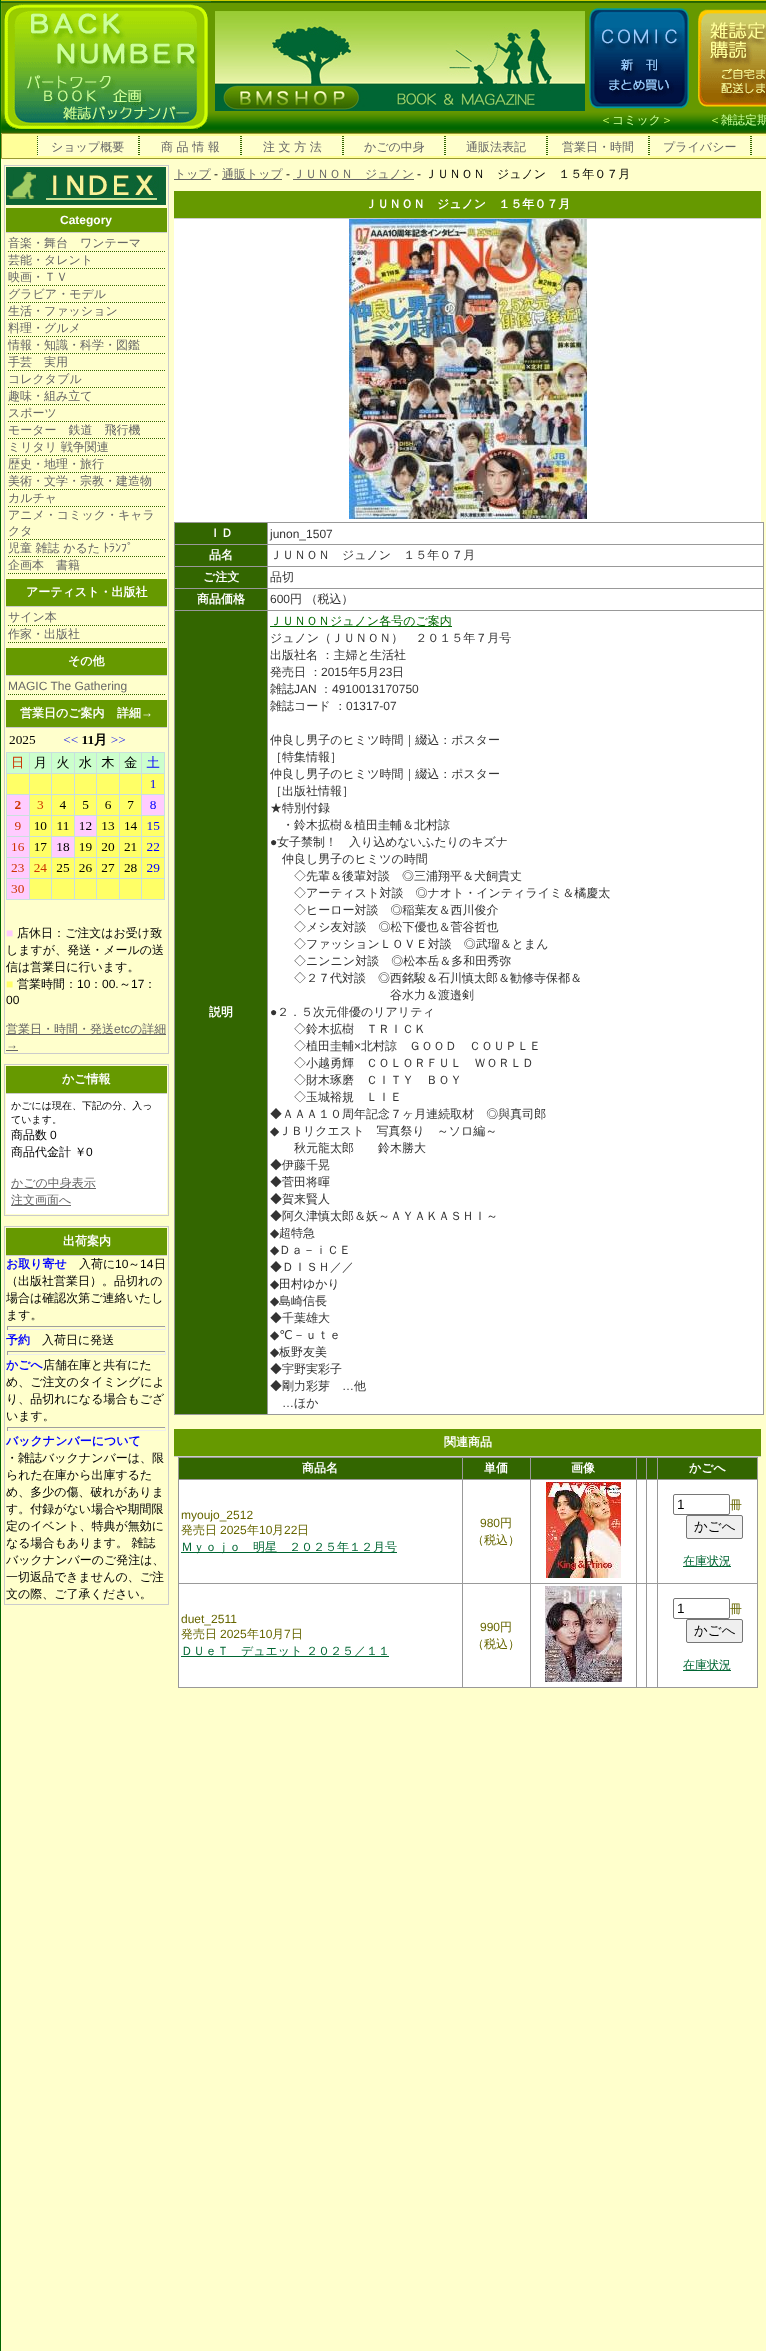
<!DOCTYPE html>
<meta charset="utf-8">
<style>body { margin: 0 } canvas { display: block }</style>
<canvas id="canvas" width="766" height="2351"></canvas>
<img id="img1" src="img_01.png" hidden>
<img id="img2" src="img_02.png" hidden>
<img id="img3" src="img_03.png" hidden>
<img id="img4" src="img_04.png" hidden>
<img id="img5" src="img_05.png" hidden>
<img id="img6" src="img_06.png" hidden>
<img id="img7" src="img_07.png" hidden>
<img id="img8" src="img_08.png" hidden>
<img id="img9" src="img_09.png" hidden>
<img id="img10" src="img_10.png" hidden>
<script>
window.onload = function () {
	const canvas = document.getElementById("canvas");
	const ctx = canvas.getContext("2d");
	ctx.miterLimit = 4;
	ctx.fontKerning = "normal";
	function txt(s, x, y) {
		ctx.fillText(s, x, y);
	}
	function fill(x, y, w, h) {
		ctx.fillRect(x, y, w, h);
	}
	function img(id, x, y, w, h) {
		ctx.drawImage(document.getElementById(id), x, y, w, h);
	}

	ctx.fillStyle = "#FFFFCC";
	fill(0, 0, 766, 2351);
	ctx.fillStyle = "#CCCC00";
	fill(0, 0, 766, 1);
	ctx.fillStyle = "#006600";
	fill(0, 0, 1, 2351);
	img("img1", 1, 1, 765, 132);
	img("img2", 1, 1, 210, 128);
	img("img3", 215, 11, 370, 100);
	img("img4", 589, 8, 100, 101);
	img("img5", 698, 9, 68, 98);
	ctx.fillStyle = "#FFFF99";
	ctx.beginPath();
	ctx.rect(1.5, 133.5, 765, 25);
	ctx.fill();
	ctx.strokeStyle = "#999933";
	ctx.stroke();
	ctx.fillStyle = "#FFFFCC";
	fill(37, 136, 729, 20);
	ctx.beginPath();
	ctx.moveTo(138.5, 136);
	ctx.lineTo(138.5, 156);
	ctx.strokeStyle = "#336600";
	ctx.setLineDash([1, 1]);
	ctx.stroke();
	ctx.beginPath();
	ctx.moveTo(37.5, 136);
	ctx.lineTo(37.5, 156);
	ctx.stroke();
	ctx.beginPath();
	ctx.moveTo(240.5, 136);
	ctx.lineTo(240.5, 156);
	ctx.stroke();
	ctx.beginPath();
	ctx.moveTo(139.5, 136);
	ctx.lineTo(139.5, 156);
	ctx.stroke();
	ctx.beginPath();
	ctx.moveTo(342.5, 136);
	ctx.lineTo(342.5, 156);
	ctx.stroke();
	ctx.beginPath();
	ctx.moveTo(241.5, 136);
	ctx.lineTo(241.5, 156);
	ctx.stroke();
	ctx.beginPath();
	ctx.moveTo(444.5, 136);
	ctx.lineTo(444.5, 156);
	ctx.stroke();
	ctx.beginPath();
	ctx.moveTo(343.5, 136);
	ctx.lineTo(343.5, 156);
	ctx.stroke();
	ctx.beginPath();
	ctx.moveTo(546.5, 136);
	ctx.lineTo(546.5, 156);
	ctx.stroke();
	ctx.beginPath();
	ctx.moveTo(445.5, 136);
	ctx.lineTo(445.5, 156);
	ctx.stroke();
	ctx.beginPath();
	ctx.moveTo(648.5, 136);
	ctx.lineTo(648.5, 156);
	ctx.stroke();
	ctx.beginPath();
	ctx.moveTo(547.5, 136);
	ctx.lineTo(547.5, 156);
	ctx.stroke();
	ctx.beginPath();
	ctx.moveTo(750.5, 136);
	ctx.lineTo(750.5, 156);
	ctx.stroke();
	ctx.beginPath();
	ctx.moveTo(649.5, 136);
	ctx.lineTo(649.5, 156);
	ctx.stroke();
	ctx.beginPath();
	ctx.moveTo(751.5, 136);
	ctx.lineTo(751.5, 156);
	ctx.stroke();
	ctx.strokeStyle = "#CCCCCC";
	ctx.setLineDash([]);
	ctx.strokeRect(4.5, 165.5, 164, 888);
	img("img6", 6, 167, 160, 38);
	ctx.fillStyle = "#669900";
	fill(6, 208, 161, 24);
	ctx.fillStyle = "#CCCCCC";
	fill(6, 232, 161, 1);
	ctx.beginPath();
	ctx.moveTo(8, 251.5);
	ctx.lineTo(165, 251.5);
	ctx.strokeStyle = "#336600";
	ctx.setLineDash([1, 1]);
	ctx.stroke();
	ctx.beginPath();
	ctx.moveTo(8, 268.5);
	ctx.lineTo(165, 268.5);
	ctx.stroke();
	ctx.beginPath();
	ctx.moveTo(8, 285.5);
	ctx.lineTo(165, 285.5);
	ctx.stroke();
	ctx.beginPath();
	ctx.moveTo(8, 302.5);
	ctx.lineTo(165, 302.5);
	ctx.stroke();
	ctx.beginPath();
	ctx.moveTo(8, 319.5);
	ctx.lineTo(165, 319.5);
	ctx.stroke();
	ctx.beginPath();
	ctx.moveTo(8, 336.5);
	ctx.lineTo(165, 336.5);
	ctx.stroke();
	ctx.beginPath();
	ctx.moveTo(8, 353.5);
	ctx.lineTo(165, 353.5);
	ctx.stroke();
	ctx.beginPath();
	ctx.moveTo(8, 370.5);
	ctx.lineTo(165, 370.5);
	ctx.stroke();
	ctx.beginPath();
	ctx.moveTo(8, 387.5);
	ctx.lineTo(165, 387.5);
	ctx.stroke();
	ctx.beginPath();
	ctx.moveTo(8, 404.5);
	ctx.lineTo(165, 404.5);
	ctx.stroke();
	ctx.beginPath();
	ctx.moveTo(8, 421.5);
	ctx.lineTo(165, 421.5);
	ctx.stroke();
	ctx.beginPath();
	ctx.moveTo(8, 438.5);
	ctx.lineTo(165, 438.5);
	ctx.stroke();
	ctx.beginPath();
	ctx.moveTo(8, 455.5);
	ctx.lineTo(165, 455.5);
	ctx.stroke();
	ctx.beginPath();
	ctx.moveTo(8, 472.5);
	ctx.lineTo(165, 472.5);
	ctx.stroke();
	ctx.beginPath();
	ctx.moveTo(8, 489.5);
	ctx.lineTo(165, 489.5);
	ctx.stroke();
	ctx.beginPath();
	ctx.moveTo(8, 506.5);
	ctx.lineTo(165, 506.5);
	ctx.stroke();
	ctx.beginPath();
	ctx.moveTo(8, 539.5);
	ctx.lineTo(165, 539.5);
	ctx.stroke();
	ctx.beginPath();
	ctx.moveTo(8, 556.5);
	ctx.lineTo(165, 556.5);
	ctx.stroke();
	ctx.beginPath();
	ctx.moveTo(8, 573.5);
	ctx.lineTo(165, 573.5);
	ctx.stroke();
	ctx.fillStyle = "#669900";
	fill(6, 579, 161, 27);
	ctx.fillStyle = "#CCCCCC";
	fill(6, 606, 161, 1);
	ctx.beginPath();
	ctx.moveTo(8, 625.5);
	ctx.lineTo(165, 625.5);
	ctx.stroke();
	ctx.beginPath();
	ctx.moveTo(8, 642.5);
	ctx.lineTo(165, 642.5);
	ctx.stroke();
	ctx.fillStyle = "#669900";
	fill(6, 648, 161, 27);
	ctx.fillStyle = "#CCCCCC";
	fill(6, 675, 161, 1);
	ctx.beginPath();
	ctx.moveTo(8, 694.5);
	ctx.lineTo(165, 694.5);
	ctx.stroke();
	ctx.fillStyle = "#669900";
	fill(6, 700, 161, 27);
	ctx.fillStyle = "#CCCCCC";
	fill(6, 727, 161, 1);
	img("img7", 6, 733, 159, 167);
	ctx.fillStyle = "#666666";
	fill(6, 1034, 160, 1);
	fill(6, 1050, 12, 1);
	ctx.strokeStyle = "#CCCCCC";
	ctx.setLineDash([]);
	ctx.strokeRect(4.5, 1064.5, 164, 151);
	ctx.fillStyle = "#669900";
	fill(6, 1066, 161, 27);
	ctx.fillStyle = "#CCCCCC";
	fill(6, 1093, 161, 1);
	ctx.fillStyle = "#FFFFFF";
	fill(6, 1094, 161, 120);
	ctx.fillStyle = "#666666";
	fill(11, 1188, 85, 1);
	fill(11, 1205, 60, 1);
	ctx.strokeRect(4.5, 1226.5, 164, 378);
	ctx.fillStyle = "#669900";
	fill(6, 1228, 161, 27);
	ctx.fillStyle = "#CCCCCC";
	fill(6, 1255, 161, 1);
	ctx.fillStyle = "#9F9F9F";
	fill(7, 1326, 159, 1);
	ctx.fillStyle = "#EEEEEE";
	fill(165, 1326, 1, 4);
	fill(7, 1329, 159, 1);
	ctx.fillStyle = "#9F9F9F";
	fill(7, 1326, 1, 4);
	fill(7, 1351, 159, 1);
	ctx.fillStyle = "#EEEEEE";
	fill(165, 1351, 1, 4);
	fill(7, 1354, 159, 1);
	ctx.fillStyle = "#9F9F9F";
	fill(7, 1351, 1, 4);
	fill(7, 1427, 159, 1);
	ctx.fillStyle = "#EEEEEE";
	fill(165, 1427, 1, 4);
	fill(7, 1430, 159, 1);
	ctx.fillStyle = "#9F9F9F";
	fill(7, 1427, 1, 4);
	ctx.fillStyle = "#666666";
	fill(174, 179, 37, 1);
	fill(222, 179, 60, 1);
	fill(293, 179, 121, 1);
	ctx.fillStyle = "#669900";
	fill(174, 191, 587, 27);
	ctx.fillStyle = "#CCCCCC";
	fill(174, 218, 587, 1);
	ctx.fillStyle = "#FFFFFF";
	fill(174, 219, 587, 303);
	img("img8", 349, 219, 238, 300);
	fill(268, 523, 495, 891);
	ctx.fillStyle = "#336600";
	fill(175, 523, 92, 21);
	ctx.fillStyle = "#999999";
	fill(267, 522, 497, 1);
	fill(267, 544, 497, 1);
	fill(267, 566, 497, 1);
	fill(267, 588, 497, 1);
	fill(267, 610, 497, 1);
	fill(763, 610, 1, 805);
	fill(267, 1414, 497, 1);
	fill(267, 610, 1, 805);
	fill(174, 610, 94, 1);
	fill(267, 588, 1, 23);
	fill(174, 588, 94, 1);
	fill(267, 566, 1, 23);
	fill(174, 566, 94, 1);
	fill(267, 544, 1, 23);
	fill(174, 544, 94, 1);
	fill(267, 522, 1, 23);
	fill(174, 522, 94, 1);
	fill(174, 1414, 94, 1);
	fill(174, 610, 1, 805);
	fill(174, 588, 1, 23);
	fill(174, 566, 1, 23);
	fill(174, 544, 1, 23);
	fill(174, 522, 1, 23);
	fill(763, 588, 1, 23);
	fill(763, 566, 1, 23);
	fill(763, 544, 1, 23);
	fill(763, 522, 1, 23);
	ctx.fillStyle = "#336600";
	fill(175, 545, 92, 21);
	fill(175, 567, 92, 21);
	fill(175, 589, 92, 21);
	fill(175, 611, 92, 803);
	ctx.fillStyle = "#006600";
	fill(270, 626, 182, 1);
	ctx.fillStyle = "#669900";
	fill(174, 1429, 587, 27);
	ctx.fillStyle = "#CCCCCC";
	fill(174, 1456, 587, 1);
	ctx.fillStyle = "#FFFFFF";
	fill(179, 1480, 578, 207);
	ctx.fillStyle = "#336600";
	fill(179, 1458, 283, 21);
	ctx.fillStyle = "#999999";
	fill(657, 1457, 101, 1);
	fill(657, 1479, 101, 1);
	fill(657, 1583, 101, 1);
	fill(757, 1583, 1, 105);
	fill(657, 1687, 101, 1);
	fill(657, 1583, 1, 105);
	fill(646, 1583, 12, 1);
	fill(657, 1479, 1, 105);
	fill(646, 1479, 12, 1);
	fill(657, 1457, 1, 23);
	fill(646, 1457, 12, 1);
	fill(646, 1687, 12, 1);
	fill(646, 1583, 1, 105);
	fill(636, 1583, 11, 1);
	fill(646, 1479, 1, 105);
	fill(636, 1479, 11, 1);
	fill(646, 1457, 1, 23);
	fill(636, 1457, 11, 1);
	fill(636, 1687, 11, 1);
	fill(636, 1583, 1, 105);
	fill(530, 1583, 107, 1);
	fill(636, 1479, 1, 105);
	fill(530, 1479, 107, 1);
	fill(636, 1457, 1, 23);
	fill(530, 1457, 107, 1);
	fill(530, 1687, 107, 1);
	fill(530, 1583, 1, 105);
	fill(462, 1583, 69, 1);
	fill(530, 1479, 1, 105);
	fill(462, 1479, 69, 1);
	fill(530, 1457, 1, 23);
	fill(462, 1457, 69, 1);
	fill(462, 1687, 69, 1);
	fill(462, 1583, 1, 105);
	fill(178, 1583, 285, 1);
	fill(462, 1479, 1, 105);
	fill(178, 1479, 285, 1);
	fill(462, 1457, 1, 23);
	fill(178, 1457, 285, 1);
	fill(178, 1687, 285, 1);
	fill(178, 1583, 1, 105);
	fill(178, 1479, 1, 105);
	fill(178, 1457, 1, 23);
	ctx.fillStyle = "#336600";
	fill(463, 1458, 67, 21);
	fill(531, 1458, 105, 21);
	fill(637, 1458, 9, 21);
	fill(647, 1458, 10, 21);
	fill(658, 1458, 99, 21);
	ctx.fillStyle = "#999999";
	fill(757, 1479, 1, 105);
	fill(757, 1457, 1, 23);
	ctx.fillStyle = "#006633";
	fill(181, 1552, 216, 1);
	img("img9", 546, 1482, 75, 96);
	ctx.beginPath();
	ctx.roundRect(673.5, 1494.5, 56, 20, 1.5);
	ctx.strokeStyle = "#767676";
	ctx.stroke();
	ctx.fillStyle = "#EFEFEF";
	ctx.beginPath();
	ctx.roundRect(686.5, 1515.5, 56, 23, 1.5);
	ctx.fill();
	ctx.stroke();
	ctx.fillStyle = "#006633";
	fill(683, 1566, 48, 1);
	fill(181, 1656, 208, 1);
	img("img10", 545, 1586, 77, 96);
	ctx.beginPath();
	ctx.roundRect(673.5, 1598.5, 56, 20, 1.5);
	ctx.stroke();
	ctx.fillStyle = "#EFEFEF";
	ctx.beginPath();
	ctx.roundRect(686.5, 1619.5, 56, 23, 1.5);
	ctx.fill();
	ctx.stroke();
	ctx.fillStyle = "#006633";
	fill(683, 1670, 48, 1);
	ctx.font = "500 12px WenQuanYi Zen Hei";
	ctx.fillStyle = "#CCFF66";
	txt("＜", 600, 124);
	ctx.fillStyle = "#CCFF99";
	txt("コミック", 612, 124);
	ctx.fillStyle = "#CCFF66";
	txt("＞　　　＜", 661, 124);
	ctx.fillStyle = "#CCFF99";
	txt("雑誌定期", 721, 124);
	ctx.fillStyle = "#666666";
	txt("ショップ概要", 51, 151);
	txt("商 品 情 報", 161, 151);
	txt("注 文 方 法", 263, 151);
	txt("かごの中身", 364, 151);
	txt("通販法表記", 466, 151);
	txt("営業日・時間", 562, 151);
	txt("プライバシー", 663, 151);
	ctx.font = "bold 12px Liberation Sans";
	ctx.fillStyle = "#FFFFFF";
	txt("Category", 60, 224);
	ctx.font = "500 12px WenQuanYi Zen Hei";
	ctx.fillStyle = "#666666";
	txt("音楽・舞台　ワンテーマ", 8, 247);
	txt("芸能・タレント", 8, 264);
	txt("映画・ＴＶ", 8, 281);
	txt("グラビア・モデル", 8, 298);
	txt("生活・ファッション", 8, 315);
	txt("料理・グルメ", 8, 332);
	txt("情報・知識・科学・図鑑", 8, 349);
	txt("手芸　実用", 8, 366);
	txt("コレクタブル", 8, 383);
	txt("趣味・組み立て", 8, 400);
	txt("スポーツ", 8, 417);
	txt("モーター　鉄道　飛行機", 8, 434);
	txt("ミリタリ 戦争関連", 8, 451);
	txt("歴史・地理・旅行", 8, 468);
	txt("美術・文学・宗教・建造物", 8, 485);
	txt("カルチャ", 8, 502);
	txt("アニメ・コミック・キャラ", 8, 519);
	txt("クタ", 8, 535);
	txt("児童 雑誌 かるた", 8, 552);
	ctx.font = "12px IPAGothic";
	txt("ﾄﾗﾝﾌﾟ", 103, 552);
	ctx.font = "500 12px WenQuanYi Zen Hei";
	txt("企画本　書籍", 8, 569);
	ctx.font = "bold 12px WenQuanYi Zen Hei";
	ctx.fillStyle = "#FFFFFF";
	txt("アーティスト・出版社", 26, 596);
	ctx.font = "500 12px WenQuanYi Zen Hei";
	ctx.fillStyle = "#666666";
	txt("サイン本", 8, 621);
	txt("作家・出版社", 8, 638);
	ctx.font = "bold 12px WenQuanYi Zen Hei";
	ctx.fillStyle = "#FFFFFF";
	txt("その他", 68, 665);
	ctx.font = "12px Liberation Sans";
	ctx.fillStyle = "#666666";
	txt("MAGIC The Gathering", 8, 690);
	ctx.font = "bold 12px WenQuanYi Zen Hei";
	ctx.fillStyle = "#FFFFFF";
	txt("営業日のご案内", 20, 717);
	txt("詳細", 117, 717);
	ctx.font = "bold 12px Liberation Sans";
	txt("→", 141, 717);
	ctx.font = "12px Liberation Sans";
	ctx.fillStyle = "#FFCCFF";
	txt("■", 6, 937);
	ctx.font = "500 12px WenQuanYi Zen Hei";
	ctx.fillStyle = "#000000";
	txt("店休日：ご注文はお受け致", 17, 937);
	txt("しますが、発送・メールの送", 6, 954);
	txt("信は営業日に行います。", 6, 971);
	ctx.font = "12px Liberation Sans";
	ctx.fillStyle = "#FFFF66";
	txt("■", 6, 988);
	ctx.font = "500 12px WenQuanYi Zen Hei";
	ctx.fillStyle = "#000000";
	txt("営業時間：", 17, 988);
	ctx.font = "12px Liberation Sans";
	txt("10", 77, 988);
	ctx.font = "500 12px WenQuanYi Zen Hei";
	txt("：", 90, 988);
	ctx.font = "12px Liberation Sans";
	txt("00.", 102, 988);
	ctx.font = "500 12px WenQuanYi Zen Hei";
	txt("～", 119, 988);
	ctx.font = "12px Liberation Sans";
	txt("17", 131, 988);
	ctx.font = "500 12px WenQuanYi Zen Hei";
	txt("：", 144, 988);
	ctx.font = "12px Liberation Sans";
	txt("00", 6, 1004);
	ctx.font = "500 12px WenQuanYi Zen Hei";
	ctx.fillStyle = "#666666";
	txt("営業日・時間・発送", 6, 1033);
	ctx.font = "12px Liberation Sans";
	txt("etc", 114, 1033);
	ctx.font = "500 12px WenQuanYi Zen Hei";
	txt("の詳細", 130, 1033);
	ctx.font = "12px Liberation Sans";
	txt("→", 6, 1049);
	ctx.font = "bold 12px WenQuanYi Zen Hei";
	ctx.fillStyle = "#FFFFFF";
	txt("かご情報", 62, 1083);
	ctx.font = "500 10px WenQuanYi Zen Hei";
	ctx.fillStyle = "#000000";
	txt("かごには現在、下記の分、入っ", 11, 1109);
	txt("ています。", 11, 1123);
	ctx.font = "500 12px WenQuanYi Zen Hei";
	txt("商品数", 11, 1139);
	ctx.font = "12px Liberation Sans";
	txt("0", 50, 1139);
	ctx.font = "500 12px WenQuanYi Zen Hei";
	txt("商品代金計 ￥", 11, 1156);
	ctx.font = "12px Liberation Sans";
	txt("0", 86, 1156);
	ctx.font = "500 12px WenQuanYi Zen Hei";
	ctx.fillStyle = "#666666";
	txt("かごの中身表示", 11, 1187);
	txt("注文画面へ", 11, 1204);
	ctx.font = "bold 12px WenQuanYi Zen Hei";
	ctx.fillStyle = "#FFFFFF";
	txt("出荷案内", 63, 1245);
	ctx.fillStyle = "#0000FF";
	txt("お取り寄せ", 6, 1268);
	ctx.font = "500 12px WenQuanYi Zen Hei";
	ctx.fillStyle = "#000000";
	txt("入荷に", 79, 1268);
	ctx.font = "12px Liberation Sans";
	txt("10", 115, 1268);
	ctx.font = "500 12px WenQuanYi Zen Hei";
	txt("～", 128, 1268);
	ctx.font = "12px Liberation Sans";
	txt("14", 140, 1268);
	ctx.font = "500 12px WenQuanYi Zen Hei";
	txt("日", 154, 1268);
	txt("（出版社営業日）。品切れの", 6, 1285);
	txt("場合は確認次第ご連絡いたし", 6, 1302);
	txt("ます。", 6, 1319);
	ctx.font = "bold 12px WenQuanYi Zen Hei";
	ctx.fillStyle = "#0000FF";
	txt("予約", 6, 1344);
	ctx.font = "500 12px WenQuanYi Zen Hei";
	ctx.fillStyle = "#000000";
	txt("入荷日に発送", 42, 1344);
	ctx.font = "bold 12px WenQuanYi Zen Hei";
	ctx.fillStyle = "#0000FF";
	txt("かごへ", 6, 1369);
	ctx.font = "500 12px WenQuanYi Zen Hei";
	ctx.fillStyle = "#000000";
	txt("店舗在庫と共有にた", 43, 1369);
	txt("め、ご注文のタイミングによ", 6, 1386);
	txt("り、品切れになる場合もござ", 6, 1403);
	txt("います。", 6, 1420);
	ctx.font = "bold 12px WenQuanYi Zen Hei";
	ctx.fillStyle = "#0000FF";
	txt("バックナンバーについて", 6, 1445);
	ctx.font = "500 12px WenQuanYi Zen Hei";
	ctx.fillStyle = "#000000";
	txt("・雑誌バックナンバーは、限", 6, 1462);
	txt("られた在庫から出庫するた", 6, 1479);
	txt("め、多少の傷、破れがありま", 6, 1496);
	txt("す。付録がない場合や期間限", 6, 1513);
	txt("定のイベント、特典が無効に", 6, 1530);
	txt("なる場合もあります。 雑誌", 6, 1547);
	txt("バックナンバーのご発注は、", 6, 1564);
	txt("一切返品できませんの、ご注", 6, 1581);
	txt("文の際、ご了承ください。", 6, 1598);
	ctx.fillStyle = "#666666";
	txt("トップ", 174, 178);
	ctx.font = "12px Liberation Sans";
	ctx.fillStyle = "#000000";
	txt("-", 214, 178);
	ctx.font = "500 12px WenQuanYi Zen Hei";
	ctx.fillStyle = "#666666";
	txt("通販トップ", 222, 178);
	ctx.font = "12px Liberation Sans";
	ctx.fillStyle = "#000000";
	txt("-", 286, 178);
	ctx.font = "500 12px WenQuanYi Zen Hei";
	ctx.fillStyle = "#666666";
	txt("ＪＵＮＯＮ　ジュノン", 293, 178);
	ctx.font = "12px Liberation Sans";
	ctx.fillStyle = "#000000";
	txt("-", 417, 178);
	ctx.font = "500 12px WenQuanYi Zen Hei";
	txt("ＪＵＮＯＮ　ジュノン　１５年０７月", 425, 178);
	ctx.font = "bold 12px WenQuanYi Zen Hei";
	ctx.fillStyle = "#FFFFFF";
	txt("ＪＵＮＯＮ　ジュノン　１５年０７月", 365, 208);
	txt("ＩＤ", 209, 537);
	ctx.font = "12px Liberation Sans";
	ctx.fillStyle = "#333333";
	txt("junon_1507", 270, 538);
	ctx.font = "bold 12px WenQuanYi Zen Hei";
	ctx.fillStyle = "#FFFFFF";
	txt("品名", 209, 559);
	ctx.font = "500 12px WenQuanYi Zen Hei";
	ctx.fillStyle = "#333333";
	txt("ＪＵＮＯＮ　ジュノン　１５年０７月", 270, 559);
	ctx.font = "bold 12px WenQuanYi Zen Hei";
	ctx.fillStyle = "#FFFFFF";
	txt("ご注文", 203, 581);
	ctx.font = "500 12px WenQuanYi Zen Hei";
	ctx.fillStyle = "#333333";
	txt("品切", 270, 581);
	ctx.font = "bold 12px WenQuanYi Zen Hei";
	ctx.fillStyle = "#FFFFFF";
	txt("商品価格", 197, 603);
	ctx.font = "12px Liberation Sans";
	ctx.fillStyle = "#333333";
	txt("600", 270, 603);
	ctx.font = "500 12px WenQuanYi Zen Hei";
	txt("円 （税込）", 290, 603);
	ctx.font = "bold 12px WenQuanYi Zen Hei";
	ctx.fillStyle = "#FFFFFF";
	txt("説明", 209, 1016);
	ctx.font = "500 12px WenQuanYi Zen Hei";
	ctx.fillStyle = "#006600";
	txt("ＪＵＮＯＮジュノン各号のご案内", 270, 625);
	ctx.fillStyle = "#333333";
	txt("ジュノン（ＪＵＮＯＮ）　２０１５年７月号", 270, 642);
	txt("出版社名 ：主婦と生活社", 270, 659);
	txt("発売日 ：", 270, 676);
	ctx.font = "12px Liberation Sans";
	txt("2015", 321, 676);
	ctx.font = "500 12px WenQuanYi Zen Hei";
	txt("年", 348, 676);
	ctx.font = "12px Liberation Sans";
	txt("5", 360, 676);
	ctx.font = "500 12px WenQuanYi Zen Hei";
	txt("月", 367, 676);
	ctx.font = "12px Liberation Sans";
	txt("23", 379, 676);
	ctx.font = "500 12px WenQuanYi Zen Hei";
	txt("日", 392, 676);
	txt("雑誌", 270, 693);
	ctx.font = "12px Liberation Sans";
	txt("JAN", 294, 693);
	ctx.font = "500 12px WenQuanYi Zen Hei";
	txt("：", 320, 693);
	ctx.font = "12px Liberation Sans";
	txt("4910013170750", 332, 693);
	ctx.font = "500 12px WenQuanYi Zen Hei";
	txt("雑誌コード ：", 270, 710);
	ctx.font = "12px Liberation Sans";
	txt("01317-07", 346, 710);
	ctx.font = "500 12px WenQuanYi Zen Hei";
	txt("仲良し男子のヒミツ時間｜綴込：ポスター", 270, 744);
	txt("［特集情報］", 270, 761);
	txt("仲良し男子のヒミツ時間｜綴込：ポスター", 270, 778);
	txt("［出版社情報］", 270, 795);
	txt("★特別付録", 270, 812);
	txt("・鈴木拡樹＆植田圭輔＆北村諒", 282, 829);
	ctx.font = "12px Liberation Sans";
	txt("●", 270, 846);
	ctx.font = "500 12px WenQuanYi Zen Hei";
	txt("女子禁制！　入り込めないふたりのキズナ", 277, 846);
	txt("仲良し男子のヒミツの時間", 282, 863);
	txt("◇先輩＆後輩対談　◎三浦翔平＆犬飼貴丈", 294, 880);
	txt("◇アーティスト対談　◎ナオト・インティライミ＆橘慶太", 294, 897);
	txt("◇ヒーロー対談　◎稲葉友＆西川俊介", 294, 914);
	txt("◇メシ友対談　◎松下優也＆菅谷哲也", 294, 931);
	txt("◇ファッションＬＯＶＥ対談　◎武瑠＆とまん", 294, 948);
	txt("◇ニンニン対談　◎松本岳＆多和田秀弥", 294, 965);
	txt("◇２７代対談　◎西銘駿＆石川慎太郎＆勧修寺保都＆", 294, 982);
	txt("谷水力＆渡邉剣", 390, 999);
	ctx.font = "12px Liberation Sans";
	txt("●", 270, 1016);
	ctx.font = "500 12px WenQuanYi Zen Hei";
	txt("２．５次元俳優のリアリティ", 277, 1016);
	txt("◇鈴木拡樹　ＴＲＩＣＫ", 294, 1033);
	txt("◇植田圭輔", 294, 1050);
	ctx.font = "12px Liberation Sans";
	txt("×", 354, 1050);
	ctx.font = "500 12px WenQuanYi Zen Hei";
	txt("北村諒　ＧＯＯＤ　ＣＯＵＰＬＥ", 361, 1050);
	txt("◇小越勇輝　ＣＯＬＯＲＦＵＬ　ＷＯＲＬＤ", 294, 1067);
	txt("◇財木琢磨　ＣＩＴＹ　ＢＯＹ", 294, 1084);
	txt("◇玉城裕規　ＬＩＥ", 294, 1101);
	txt("◆ＡＡＡ１０周年記念７ヶ月連続取材　◎與真司郎", 270, 1118);
	ctx.font = "12px DejaVu Sans";
	txt("◆", 270, 1135);
	ctx.font = "500 12px WenQuanYi Zen Hei";
	txt("ＪＢリクエスト　写真祭り　～ソロ編～", 279, 1135);
	txt("秋元龍太郎　　鈴木勝大", 294, 1152);
	txt("◆伊藤千晃", 270, 1169);
	txt("◆菅田将暉", 270, 1186);
	txt("◆賀来賢人", 270, 1203);
	txt("◆阿久津慎太郎＆妖～ＡＹＡＫＡＳＨＩ～", 270, 1220);
	ctx.font = "12px DejaVu Sans";
	txt("◆", 270, 1237);
	ctx.font = "500 12px WenQuanYi Zen Hei";
	txt("超特急", 279, 1237);
	ctx.font = "12px DejaVu Sans";
	txt("◆", 270, 1254);
	ctx.font = "500 12px WenQuanYi Zen Hei";
	txt("Ｄａ－ｉＣＥ", 279, 1254);
	txt("◆ＤＩＳＨ／／", 270, 1271);
	ctx.font = "12px DejaVu Sans";
	txt("◆", 270, 1288);
	ctx.font = "500 12px WenQuanYi Zen Hei";
	txt("田村ゆかり", 279, 1288);
	ctx.font = "12px DejaVu Sans";
	txt("◆", 270, 1305);
	ctx.font = "500 12px WenQuanYi Zen Hei";
	txt("島崎信長", 279, 1305);
	txt("◆千葉雄大", 270, 1322);
	ctx.font = "12px DejaVu Sans";
	txt("◆℃", 270, 1339);
	ctx.font = "500 12px WenQuanYi Zen Hei";
	txt("－ｕｔｅ", 293, 1339);
	ctx.font = "12px DejaVu Sans";
	txt("◆", 270, 1356);
	ctx.font = "500 12px WenQuanYi Zen Hei";
	txt("板野友美", 279, 1356);
	txt("◆宇野実彩子", 270, 1373);
	txt("◆剛力彩芽", 270, 1390);
	ctx.font = "12px Liberation Sans";
	txt("…", 342, 1390);
	ctx.font = "500 12px WenQuanYi Zen Hei";
	txt("他", 354, 1390);
	ctx.font = "12px Liberation Sans";
	txt("…", 282, 1407);
	ctx.font = "500 12px WenQuanYi Zen Hei";
	txt("ほか", 294, 1407);
	ctx.font = "bold 12px WenQuanYi Zen Hei";
	ctx.fillStyle = "#FFFFFF";
	txt("関連商品", 444, 1446);
	txt("商品名", 302, 1472);
	txt("単価", 484, 1472);
	txt("画像", 571, 1472);
	txt("かごへ", 689, 1472);
	ctx.font = "12px Liberation Sans";
	ctx.fillStyle = "#666600";
	txt("myoujo_2512", 181, 1519);
	ctx.font = "500 12px WenQuanYi Zen Hei";
	txt("発売日", 181, 1534);
	ctx.font = "12px Liberation Sans";
	txt("2025", 220, 1534);
	ctx.font = "500 12px WenQuanYi Zen Hei";
	txt("年", 247, 1534);
	ctx.font = "12px Liberation Sans";
	txt("10", 259, 1534);
	ctx.font = "500 12px WenQuanYi Zen Hei";
	txt("月", 272, 1534);
	ctx.font = "12px Liberation Sans";
	txt("22", 284, 1534);
	ctx.font = "500 12px WenQuanYi Zen Hei";
	txt("日", 297, 1534);
	ctx.fillStyle = "#006633";
	txt("Ｍｙｏｊｏ　明星　２０２５年１２月号", 181, 1551);
	ctx.font = "12px Liberation Sans";
	ctx.fillStyle = "#666600";
	txt("980", 480, 1527);
	ctx.font = "500 12px WenQuanYi Zen Hei";
	txt("円", 500, 1527);
	txt("（税込）", 472, 1544);
	ctx.font = "13.5px Liberation Sans";
	ctx.fillStyle = "#000000";
	txt("1", 677, 1509);
	ctx.font = "500 12px WenQuanYi Zen Hei";
	ctx.fillStyle = "#666600";
	txt("冊", 730, 1509);
	ctx.font = "500 13.5px WenQuanYi Zen Hei";
	ctx.fillStyle = "#000000";
	txt("かごへ", 694, 1531);
	ctx.font = "500 12px WenQuanYi Zen Hei";
	ctx.fillStyle = "#006633";
	txt("在庫状況", 683, 1565);
	ctx.font = "12px Liberation Sans";
	ctx.fillStyle = "#666600";
	txt("duet_2511", 181, 1623);
	ctx.font = "500 12px WenQuanYi Zen Hei";
	txt("発売日", 181, 1638);
	ctx.font = "12px Liberation Sans";
	txt("2025", 220, 1638);
	ctx.font = "500 12px WenQuanYi Zen Hei";
	txt("年", 247, 1638);
	ctx.font = "12px Liberation Sans";
	txt("10", 259, 1638);
	ctx.font = "500 12px WenQuanYi Zen Hei";
	txt("月", 272, 1638);
	ctx.font = "12px Liberation Sans";
	txt("7", 284, 1638);
	ctx.font = "500 12px WenQuanYi Zen Hei";
	txt("日", 291, 1638);
	ctx.fillStyle = "#006633";
	txt("ＤＵｅＴ　デュエット ２０２５／１１", 181, 1655);
	ctx.font = "12px Liberation Sans";
	ctx.fillStyle = "#666600";
	txt("990", 480, 1631);
	ctx.font = "500 12px WenQuanYi Zen Hei";
	txt("円", 500, 1631);
	txt("（税込）", 472, 1648);
	ctx.font = "13.5px Liberation Sans";
	ctx.fillStyle = "#000000";
	txt("1", 677, 1613);
	ctx.font = "500 12px WenQuanYi Zen Hei";
	ctx.fillStyle = "#666600";
	txt("冊", 730, 1613);
	ctx.font = "500 13.5px WenQuanYi Zen Hei";
	ctx.fillStyle = "#000000";
	txt("かごへ", 694, 1635);
	ctx.font = "500 12px WenQuanYi Zen Hei";
	ctx.fillStyle = "#006633";
	txt("在庫状況", 683, 1669);
};
</script>
